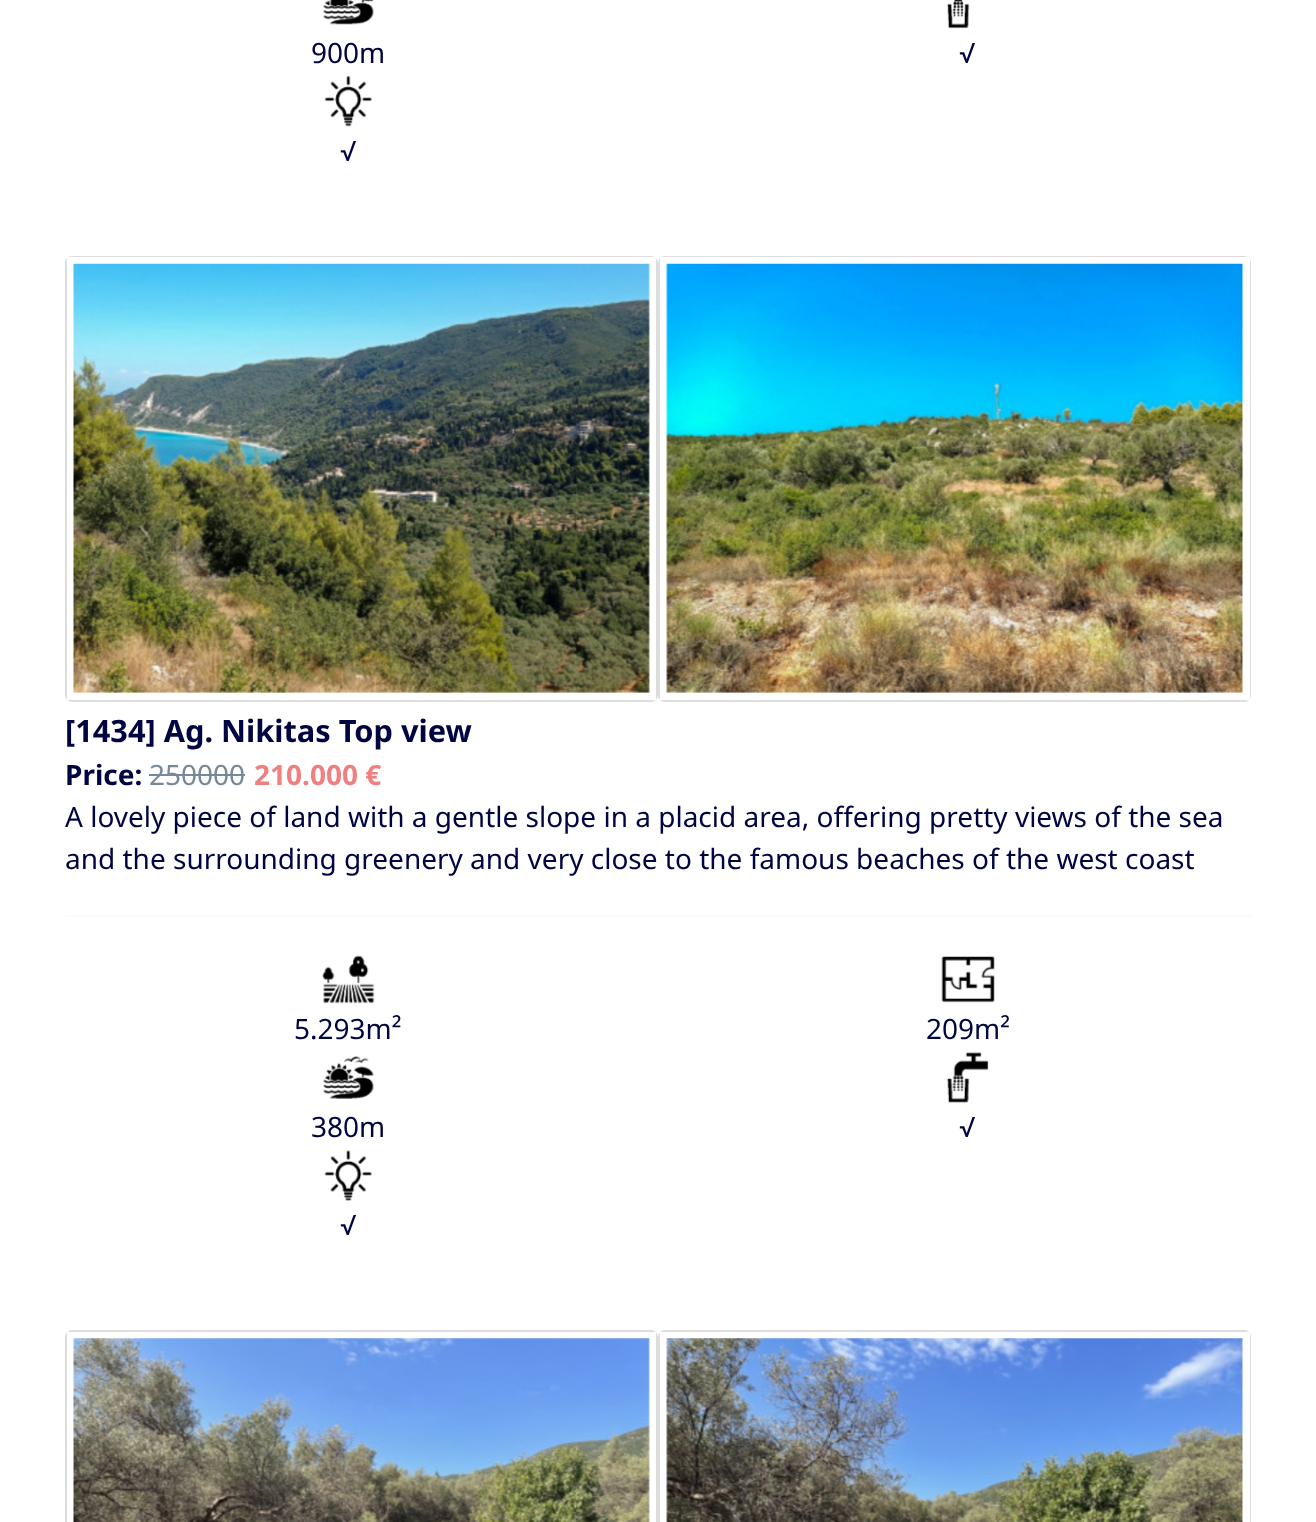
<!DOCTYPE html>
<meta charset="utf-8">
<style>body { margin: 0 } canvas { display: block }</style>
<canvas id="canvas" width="1316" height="1522"></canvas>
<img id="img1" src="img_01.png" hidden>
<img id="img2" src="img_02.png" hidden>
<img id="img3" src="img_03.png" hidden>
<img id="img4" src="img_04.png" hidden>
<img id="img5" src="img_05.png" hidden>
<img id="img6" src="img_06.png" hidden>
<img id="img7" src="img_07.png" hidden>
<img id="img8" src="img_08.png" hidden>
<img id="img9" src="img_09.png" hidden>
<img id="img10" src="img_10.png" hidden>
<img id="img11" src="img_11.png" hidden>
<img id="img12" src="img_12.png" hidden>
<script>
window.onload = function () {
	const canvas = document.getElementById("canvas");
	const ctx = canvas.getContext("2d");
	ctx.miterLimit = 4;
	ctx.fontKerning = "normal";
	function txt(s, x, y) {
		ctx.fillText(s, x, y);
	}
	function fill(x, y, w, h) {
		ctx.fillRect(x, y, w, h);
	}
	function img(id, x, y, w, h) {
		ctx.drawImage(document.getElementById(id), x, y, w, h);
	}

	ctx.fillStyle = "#FFFFFF";
	fill(0, 0, 1316, 1522);
	img("img1", 323, 0, 51, 25);
	img("img2", 947, 0, 23, 29);
	img("img3", 324, 75, 49, 52);
	ctx.beginPath();
	ctx.roundRect(66, 257, 591, 444, 6);
	ctx.strokeStyle = "#DDDDDD";
	ctx.lineWidth = 2;
	ctx.stroke();
	fill(67, 257, 589, 443);
	img("img4", 73, 263, 577, 430);
	ctx.beginPath();
	ctx.roundRect(659, 257, 591, 444, 6);
	ctx.stroke();
	fill(660, 257, 590, 443);
	img("img5", 666, 263, 577, 430);
	ctx.fillStyle = "#778899";
	fill(149, 774, 96, 2);
	ctx.fillStyle = "#FBFBFB";
	fill(65, 915, 1186, 2);
	img("img6", 322, 955, 53, 49);
	img("img7", 941, 956, 54, 47);
	img("img8", 323, 1056, 51, 43);
	img("img9", 947, 1052, 42, 51);
	img("img10", 324, 1150, 49, 51);
	ctx.beginPath();
	ctx.roundRect(66, 1331, 591, 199, 6);
	ctx.stroke();
	ctx.fillStyle = "#FFFFFF";
	fill(67, 1332, 589, 4);
	img("img11", 73, 1338, 577, 184);
	ctx.beginPath();
	ctx.roundRect(659, 1331, 591, 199, 6);
	ctx.stroke();
	fill(660, 1332, 590, 190);
	img("img12", 666, 1338, 577, 184);
	ctx.font = "28px Noto Sans";
	ctx.fillStyle = "#000542";
	txt("900m", 311, 63);
	ctx.font = "28px Roboto";
	txt("√", 959, 63);
	txt("√", 340, 161);
	ctx.font = "bold 30.75px Noto Sans";
	txt("[1434] Ag. Nikitas Top view", 65, 742);
	ctx.font = "bold 28px Noto Sans";
	txt("Price:", 65, 785);
	ctx.font = "28px Noto Sans";
	ctx.fillStyle = "#778899";
	txt("250000", 149, 785);
	ctx.font = "bold 28px Noto Sans";
	ctx.fillStyle = "#F08080";
	txt("210.000 €", 254, 785);
	ctx.font = "28px Noto Sans";
	ctx.fillStyle = "#000542";
	txt("A lovely piece of land with a gentle slope in a placid area, offering pretty views of the sea", 65, 827);
	txt("and the surrounding greenery and very close to the famous beaches of the west coast", 65, 869);
	txt("5.293m²", 294, 1039);
	txt("209m²", 926, 1039);
	txt("380m", 311, 1137);
	ctx.font = "28px Roboto";
	txt("√", 959, 1137);
	txt("√", 340, 1235);
};
</script>
